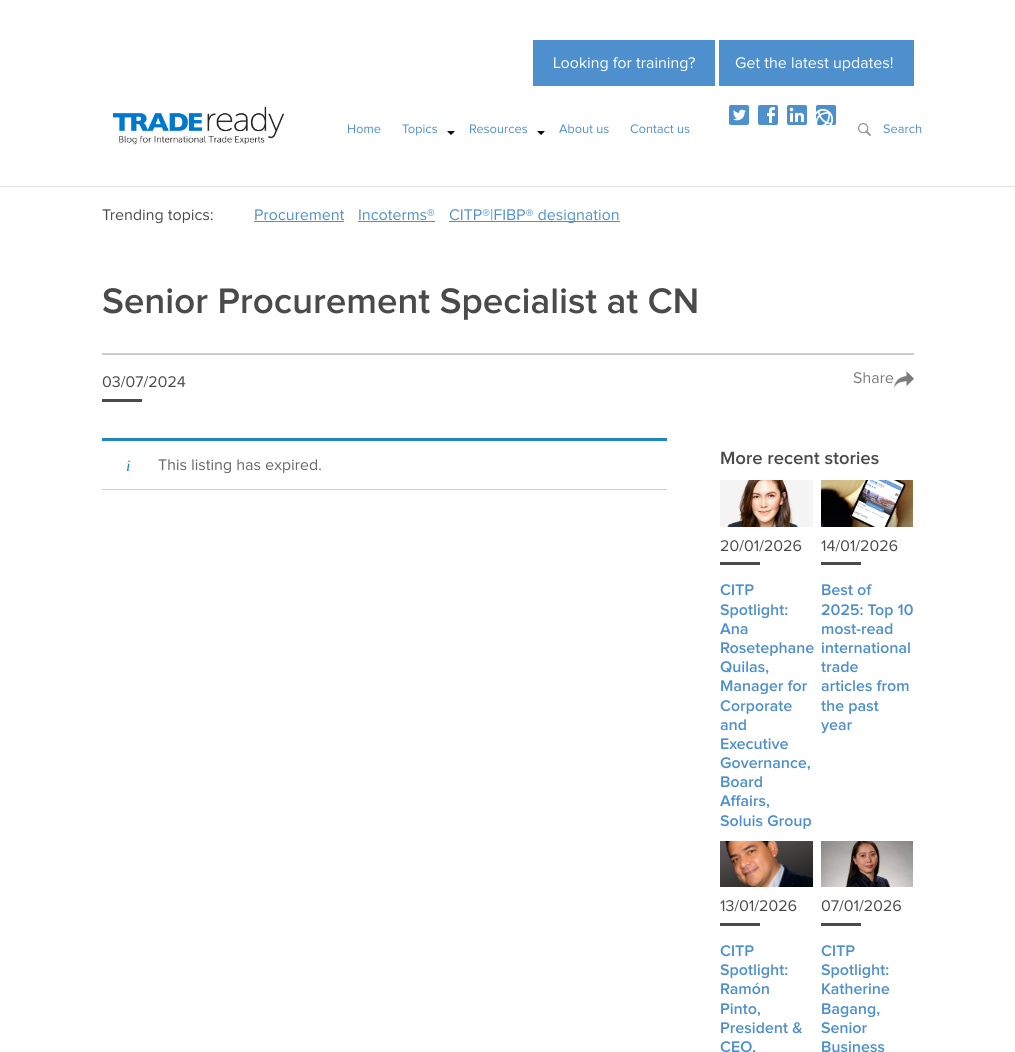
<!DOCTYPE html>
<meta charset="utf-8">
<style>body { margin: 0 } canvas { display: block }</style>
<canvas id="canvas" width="1015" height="1052"></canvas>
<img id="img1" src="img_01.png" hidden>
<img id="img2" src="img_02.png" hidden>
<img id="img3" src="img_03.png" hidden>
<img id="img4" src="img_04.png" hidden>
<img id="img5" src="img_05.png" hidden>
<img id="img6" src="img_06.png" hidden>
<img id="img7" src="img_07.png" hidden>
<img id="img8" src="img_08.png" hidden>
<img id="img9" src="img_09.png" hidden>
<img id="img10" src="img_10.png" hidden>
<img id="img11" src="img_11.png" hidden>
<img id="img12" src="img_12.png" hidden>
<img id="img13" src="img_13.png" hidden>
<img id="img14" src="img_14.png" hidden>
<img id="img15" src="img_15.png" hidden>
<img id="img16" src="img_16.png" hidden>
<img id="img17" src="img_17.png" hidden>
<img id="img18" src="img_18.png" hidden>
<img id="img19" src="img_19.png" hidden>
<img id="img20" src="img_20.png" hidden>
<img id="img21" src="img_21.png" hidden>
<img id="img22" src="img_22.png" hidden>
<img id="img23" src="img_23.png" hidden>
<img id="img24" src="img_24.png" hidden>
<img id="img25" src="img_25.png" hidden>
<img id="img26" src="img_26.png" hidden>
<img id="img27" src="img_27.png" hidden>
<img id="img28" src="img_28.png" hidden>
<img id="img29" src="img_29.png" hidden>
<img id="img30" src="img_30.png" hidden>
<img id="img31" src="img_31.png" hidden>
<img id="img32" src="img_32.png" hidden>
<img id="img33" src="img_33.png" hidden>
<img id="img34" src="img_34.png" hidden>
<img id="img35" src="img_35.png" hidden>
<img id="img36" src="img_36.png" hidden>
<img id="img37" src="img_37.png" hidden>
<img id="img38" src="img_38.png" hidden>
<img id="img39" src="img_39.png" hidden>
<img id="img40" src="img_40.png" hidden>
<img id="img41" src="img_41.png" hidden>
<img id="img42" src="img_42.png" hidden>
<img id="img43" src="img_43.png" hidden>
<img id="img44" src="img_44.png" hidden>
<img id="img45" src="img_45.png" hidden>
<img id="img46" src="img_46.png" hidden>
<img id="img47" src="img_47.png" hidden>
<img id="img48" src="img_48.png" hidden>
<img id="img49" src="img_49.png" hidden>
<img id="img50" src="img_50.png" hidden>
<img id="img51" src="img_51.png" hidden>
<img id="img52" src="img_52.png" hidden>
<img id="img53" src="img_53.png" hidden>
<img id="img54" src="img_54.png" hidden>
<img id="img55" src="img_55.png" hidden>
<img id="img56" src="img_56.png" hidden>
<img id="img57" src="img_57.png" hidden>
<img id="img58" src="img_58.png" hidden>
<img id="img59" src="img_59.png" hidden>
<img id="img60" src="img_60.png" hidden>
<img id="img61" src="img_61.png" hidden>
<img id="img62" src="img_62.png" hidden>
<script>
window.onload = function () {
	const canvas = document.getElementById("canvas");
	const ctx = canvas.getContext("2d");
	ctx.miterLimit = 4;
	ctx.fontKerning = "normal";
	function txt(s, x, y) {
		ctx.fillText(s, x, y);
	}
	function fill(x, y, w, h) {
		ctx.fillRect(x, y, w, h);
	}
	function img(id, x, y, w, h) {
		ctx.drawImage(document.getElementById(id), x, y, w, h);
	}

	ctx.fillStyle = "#FFFFFF";
	fill(0, 0, 1015, 1052);
	ctx.fillStyle = "#E3DFDF";
	fill(0, 186, 1015, 1);
	ctx.fillStyle = "#4E90CD";
	fill(533, 40, 182, 46);
	img("img1", 554, 57, 141, 15);
	fill(719, 40, 195, 46);
	img("img2", 735, 57, 158, 14);
	img("img3", 112, 106, 172, 39);
	img("img4", 348, 124, 33, 10);
	img("img5", 447, 131, 8, 4);
	img("img6", 402, 124, 35, 12);
	img("img5", 537, 131, 8, 4);
	img("img7", 470, 124, 58, 10);
	img("img8", 559, 124, 50, 10);
	img("img9", 630, 124, 60, 10);
	img("img10", 729, 105, 20, 20);
	img("img11", 758, 105, 20, 20);
	img("img12", 787, 105, 20, 20);
	img("img13", 816, 105, 20, 20);
	img("img14", 858, 123, 13, 13);
	img("img15", 883, 124, 39, 10);
	img("img16", 102, 209, 111, 15);
	img("img17", 255, 209, 90, 12);
	img("img18", 359, 209, 76, 12);
	fill(449, 221, 171, 1);
	img("img19", 449, 209, 170, 15);
	fill(254, 221, 90, 1);
	fill(358, 221, 77, 1);
	ctx.fillStyle = "#CCCCCC";
	fill(102, 353, 812, 2);
	img("img20", 103, 288, 594, 32);
	img("img21", 102, 376, 84, 12);
	ctx.fillStyle = "#4A4A4A";
	fill(102, 399, 40, 3);
	img("img22", 853, 372, 41, 12);
	img("img23", 894, 371, 20, 17);
	ctx.save();
	ctx.beginPath();
	ctx.moveTo(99, 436);
	ctx.lineTo(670, 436);
	ctx.lineTo(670, 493);
	ctx.lineTo(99, 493);
	ctx.closePath();
	ctx.moveTo(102, 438);
	ctx.lineTo(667, 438);
	ctx.lineTo(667, 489);
	ctx.lineTo(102, 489);
	ctx.closePath();
	ctx.clip("evenodd");
	ctx.fillStyle = "rgba(0, 0, 0, 0.2)";
	ctx.filter = "blur(0.5px)";
	ctx.beginPath();
	ctx.rect(102, 439, 565, 51);
	ctx.fill();
	ctx.filter = "none";
	ctx.restore();
	ctx.fillStyle = "#1E85BE";
	fill(102, 438, 565, 3);
	img("img24", 158, 459, 163, 15);
	img("img25", 721, 451, 158, 14);
	img("img26", 720, 480, 93, 47);
	img("img27", 720, 540, 82, 12);
	ctx.fillStyle = "#4A4A4A";
	fill(720, 562, 40, 3);
	img("img28", 720, 584, 34, 12);
	img("img29", 720, 604, 68, 15);
	img("img30", 720, 623, 28, 12);
	img("img31", 721, 642, 93, 14);
	img("img32", 720, 661, 49, 13);
	img("img33", 721, 680, 86, 15);
	img("img34", 720, 700, 72, 14);
	img("img35", 720, 719, 26, 12);
	img("img36", 721, 738, 67, 12);
	img("img37", 720, 757, 90, 13);
	img("img38", 721, 776, 41, 12);
	img("img39", 720, 795, 50, 13);
	img("img40", 720, 815, 92, 14);
	img("img41", 821, 480, 92, 47);
	img("img42", 821, 540, 77, 12);
	fill(821, 562, 40, 3);
	img("img43", 822, 584, 50, 12);
	img("img44", 821, 604, 92, 14);
	img("img45", 822, 623, 71, 12);
	img("img46", 821, 642, 89, 12);
	img("img47", 821, 661, 37, 12);
	img("img48", 821, 680, 88, 12);
	img("img49", 821, 700, 58, 14);
	img("img50", 821, 722, 31, 12);
	img("img51", 720, 841, 93, 46);
	img("img52", 720, 900, 77, 12);
	fill(720, 923, 40, 3);
	img("img28", 720, 945, 34, 12);
	img("img29", 720, 964, 68, 15);
	img("img53", 721, 982, 48, 13);
	img("img54", 721, 1003, 40, 13);
	img("img55", 721, 1022, 81, 12);
	img("img56", 720, 1041, 36, 11);
	img("img57", 821, 841, 92, 46);
	img("img58", 821, 900, 80, 12);
	fill(821, 923, 40, 3);
	img("img28", 821, 945, 34, 12);
	img("img29", 821, 964, 68, 15);
	img("img59", 822, 983, 68, 12);
	img("img60", 822, 1003, 58, 15);
	img("img61", 821, 1022, 46, 12);
	img("img62", 822, 1041, 63, 11);
	ctx.font = "italic 16px Liberation Serif";
	ctx.fillStyle = "#1E85BE";
	txt("i", 126, 471);
};
</script>
